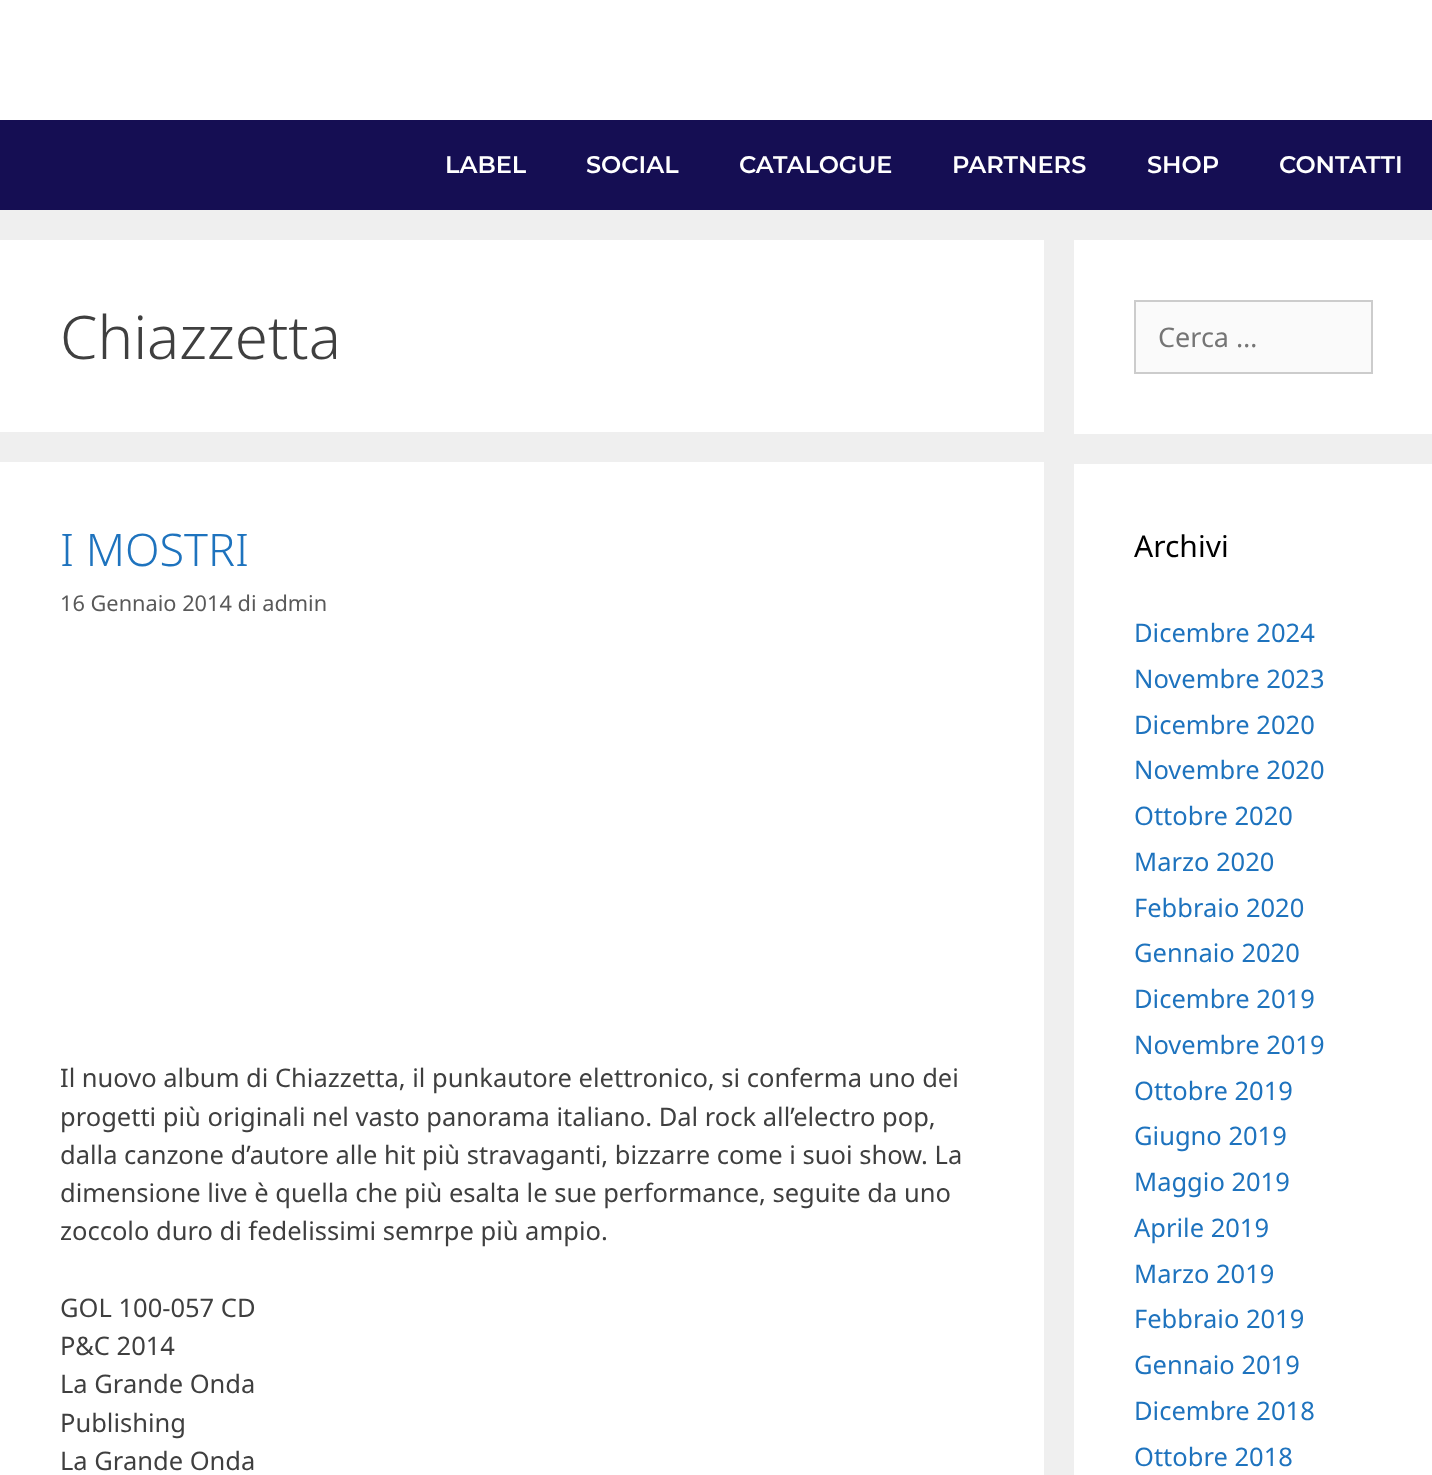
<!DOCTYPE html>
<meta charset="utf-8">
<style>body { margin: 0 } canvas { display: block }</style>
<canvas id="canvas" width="1432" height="1475"></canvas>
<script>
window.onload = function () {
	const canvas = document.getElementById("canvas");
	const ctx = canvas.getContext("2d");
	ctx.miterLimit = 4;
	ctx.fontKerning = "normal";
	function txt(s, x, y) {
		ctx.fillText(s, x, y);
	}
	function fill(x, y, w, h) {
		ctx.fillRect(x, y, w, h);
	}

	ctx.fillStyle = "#EFEFEF";
	fill(0, 0, 1432, 1475);
	ctx.fillStyle = "#FFFFFF";
	fill(0, 0, 1432, 120);
	ctx.fillStyle = "#150E53";
	fill(0, 120, 1432, 90);
	ctx.fillStyle = "#FFFFFF";
	fill(0, 240, 1044, 192);
	fill(0, 462, 1044, 1013);
	fill(1074, 240, 358, 194);
	ctx.fillStyle = "#FAFAFA";
	ctx.beginPath();
	ctx.rect(1135, 301, 237, 72);
	ctx.fill();
	ctx.strokeStyle = "#CCCCCC";
	ctx.lineWidth = 2;
	ctx.stroke();
	ctx.fillStyle = "#FFFFFF";
	fill(1074, 464, 358, 1011);
	ctx.font = "100 24px Montserrat";
	txt("LABEL", 445, 173);
	txt("SOCIAL", 586, 173);
	txt("CATALOGUE", 739, 173);
	txt("PARTNERS", 952, 173);
	txt("SHOP", 1147, 173);
	txt("CONTATTI", 1279, 173);
	ctx.font = "300 60px Noto Sans";
	ctx.fillStyle = "#3F3F3F";
	txt("Chiazzetta", 60, 359);
	ctx.font = "300 45px Noto Sans";
	ctx.fillStyle = "#1E73BE";
	txt("I MOSTRI", 60, 566);
	ctx.font = "21.75px Noto Sans";
	ctx.fillStyle = "#595959";
	txt("16 Gennaio 2014 di admin", 60, 611);
	ctx.font = "25.5px Noto Sans";
	ctx.fillStyle = "#3F3F3F";
	txt("Il nuovo album di Chiazzetta, il punkautore elettronico, si conferma uno dei", 60, 1087);
	txt("progetti più originali nel vasto panorama italiano. Dal rock all’electro pop,", 60, 1126);
	txt("dalla canzone d’autore alle hit più stravaganti, bizzarre come i suoi show. La", 60, 1164);
	txt("dimensione live è quella che più esalta le sue performance, seguite da uno", 60, 1202);
	txt("zoccolo duro di fedelissimi semrpe più ampio.", 60, 1240);
	txt("GOL 100-057 CD", 60, 1317);
	txt("P&C 2014", 60, 1355);
	txt("La Grande Onda", 60, 1393);
	txt("Publishing", 60, 1432);
	txt("La Grande Onda", 60, 1470);
	ctx.font = "27px Noto Sans";
	ctx.fillStyle = "#757575";
	txt("Cerca …", 1158, 347);
	ctx.font = "30px Noto Sans";
	ctx.fillStyle = "#000000";
	txt("Archivi", 1134, 557);
	ctx.font = "25.5px Noto Sans";
	ctx.fillStyle = "#1E73BE";
	txt("Dicembre 2024", 1134, 642);
	txt("Novembre 2023", 1134, 688);
	txt("Dicembre 2020", 1134, 734);
	txt("Novembre 2020", 1134, 779);
	txt("Ottobre 2020", 1134, 825);
	txt("Marzo 2020", 1134, 871);
	txt("Febbraio 2020", 1134, 917);
	txt("Gennaio 2020", 1134, 962);
	txt("Dicembre 2019", 1134, 1008);
	txt("Novembre 2019", 1134, 1054);
	txt("Ottobre 2019", 1134, 1100);
	txt("Giugno 2019", 1134, 1145);
	txt("Maggio 2019", 1134, 1191);
	txt("Aprile 2019", 1134, 1237);
	txt("Marzo 2019", 1134, 1283);
	txt("Febbraio 2019", 1134, 1328);
	txt("Gennaio 2019", 1134, 1374);
	txt("Dicembre 2018", 1134, 1420);
	txt("Ottobre 2018", 1134, 1466);
};
</script>
